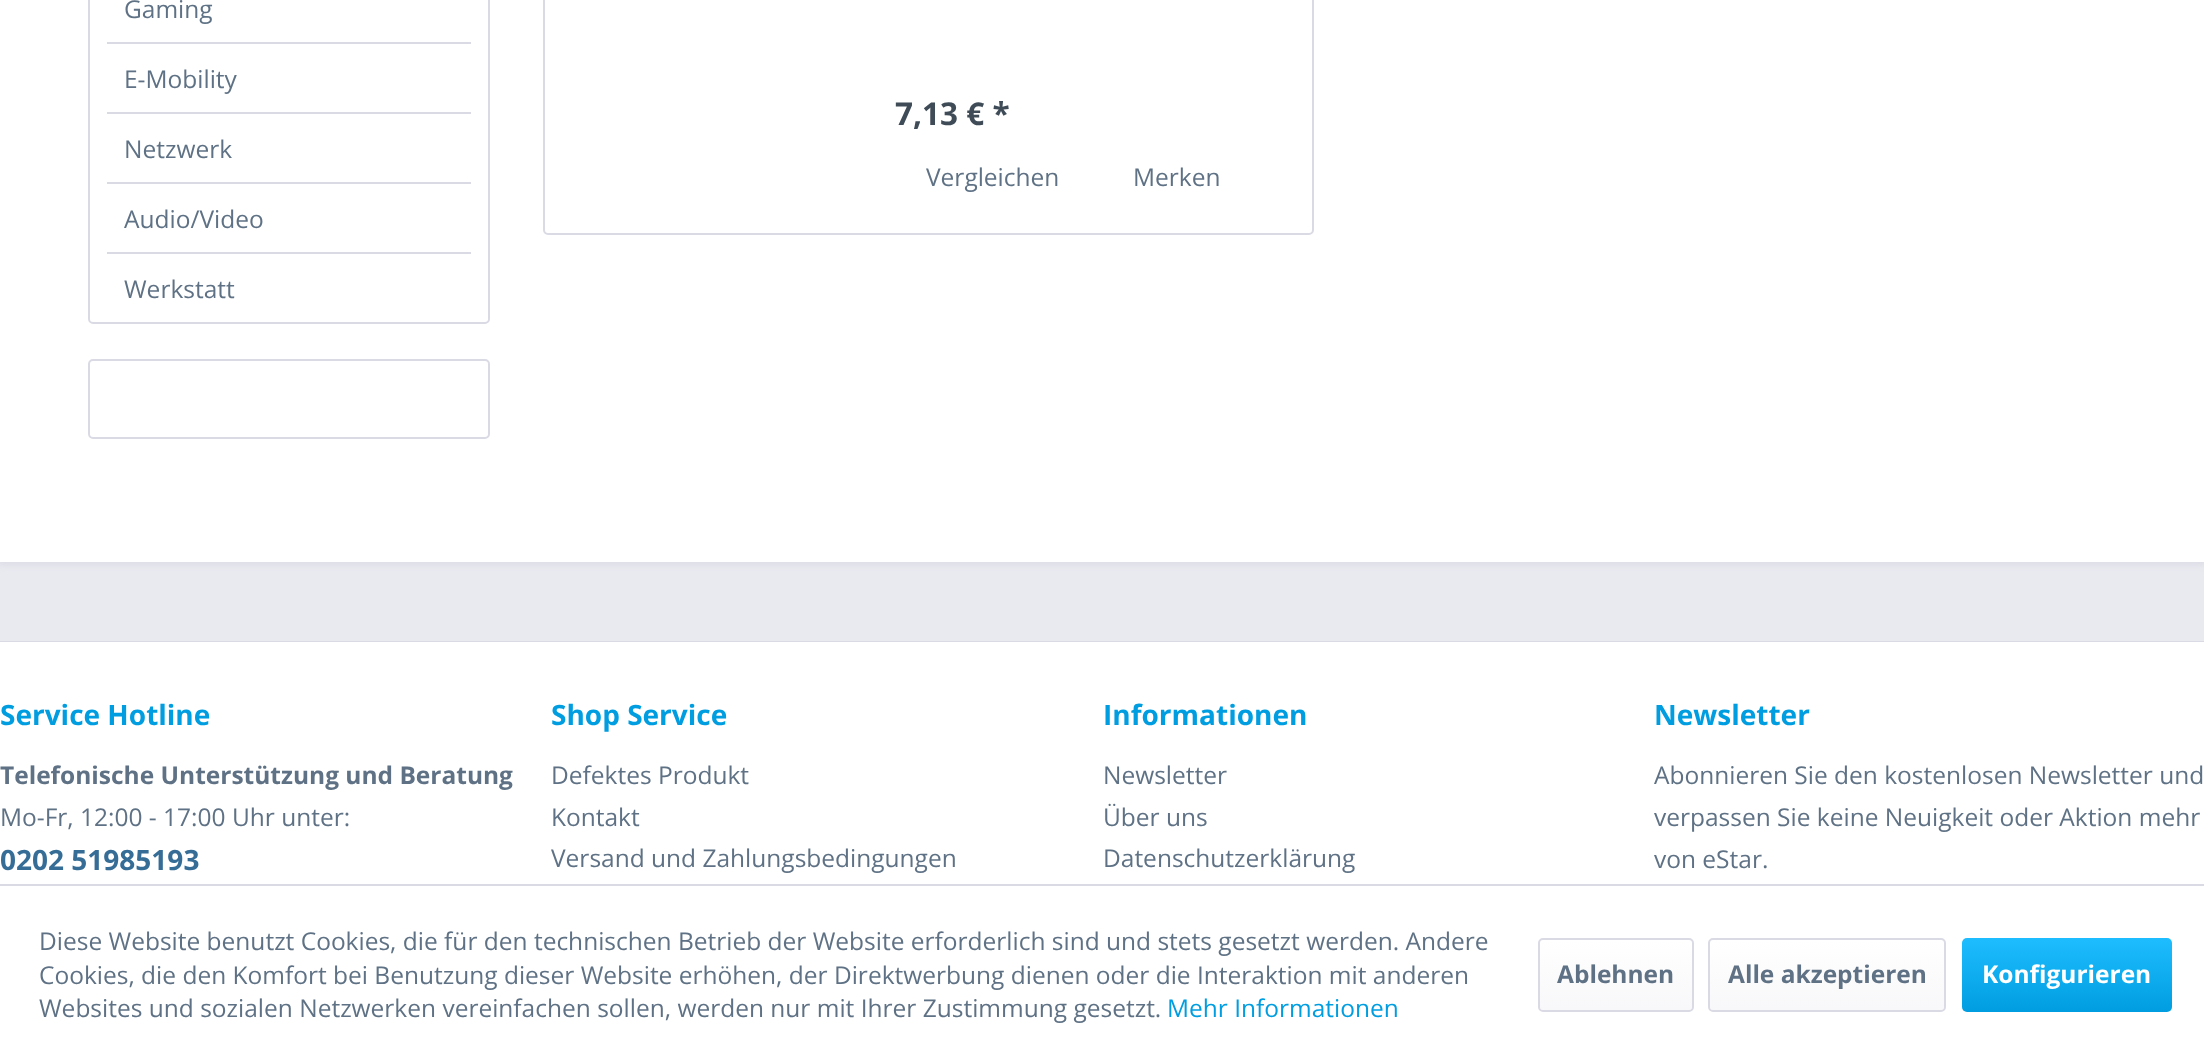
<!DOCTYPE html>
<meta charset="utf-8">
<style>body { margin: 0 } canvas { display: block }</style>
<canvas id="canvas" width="2204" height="1062"></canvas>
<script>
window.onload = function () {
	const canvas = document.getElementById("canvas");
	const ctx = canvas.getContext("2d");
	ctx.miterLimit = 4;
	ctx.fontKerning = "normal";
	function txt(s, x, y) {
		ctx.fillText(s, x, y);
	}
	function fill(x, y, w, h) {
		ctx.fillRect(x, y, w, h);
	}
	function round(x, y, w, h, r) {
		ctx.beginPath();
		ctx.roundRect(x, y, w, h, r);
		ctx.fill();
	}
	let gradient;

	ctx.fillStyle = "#E9E9F0";
	fill(0, 0, 2204, 1062);
	ctx.fillStyle = "#DADAE5";
	ctx.filter = "blur(3.5px)";
	ctx.beginPath();
	ctx.rect(-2, -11, 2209, 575);
	ctx.fill();
	ctx.filter = "none";
	ctx.fillStyle = "#FFFFFF";
	fill(0, 0, 2204, 562);
	ctx.beginPath();
	ctx.roundRect(89, -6, 400, 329, 4);
	ctx.strokeStyle = "#DADAE5";
	ctx.lineWidth = 2;
	ctx.stroke();
	ctx.fillStyle = "#DADAE5";
	fill(107, 42, 364, 2);
	fill(107, 112, 364, 2);
	fill(107, 182, 364, 2);
	fill(107, 252, 364, 2);
	ctx.beginPath();
	ctx.roundRect(89, 360, 400, 78, 4);
	ctx.stroke();
	ctx.beginPath();
	ctx.roundRect(544, -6, 769, 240, 4);
	ctx.stroke();
	fill(0, 641, 2204, 1);
	ctx.fillStyle = "#FFFFFF";
	fill(0, 642, 2204, 242);
	fill(0, 886, 2204, 176);
	ctx.fillStyle = "#DADAE5";
	fill(0, 884, 2204, 2);
	gradient = ctx.createLinearGradient(1616, 940, 1616, 1010);
	gradient.addColorStop(0, "#FFFFFF");
	gradient.addColorStop(1, "#F8F8FA");
	ctx.fillStyle = gradient;
	round(1540, 940, 152, 70, 4);
	ctx.beginPath();
	ctx.roundRect(1539, 939, 154, 72, 4);
	ctx.stroke();
	gradient = ctx.createLinearGradient(1827, 940, 1827, 1010);
	gradient.addColorStop(0, "#FFFFFF");
	gradient.addColorStop(1, "#F8F8FA");
	ctx.fillStyle = gradient;
	round(1710, 940, 234, 70, 4);
	ctx.beginPath();
	ctx.roundRect(1709, 939, 236, 72, 4);
	ctx.stroke();
	gradient = ctx.createLinearGradient(2067, 938, 2067, 1012);
	gradient.addColorStop(0, "#1EBDFF");
	gradient.addColorStop(1, "#009EE0");
	ctx.fillStyle = gradient;
	round(1962, 938, 210, 74, 5);
	ctx.font = "24.5px Open Sans";
	ctx.fillStyle = "#5F7285";
	txt("Gaming", 124, 18);
	txt("E-Mobility", 124, 88);
	txt("Netzwerk", 124, 158);
	txt("Audio/Video", 124, 228);
	txt("Werkstatt", 124, 298);
	ctx.font = "bold 31.5px Open Sans";
	ctx.fillStyle = "#3F4C58";
	txt("7,13 € *", 895, 125);
	ctx.font = "24.5px Open Sans";
	ctx.fillStyle = "#5F7285";
	txt("Vergleichen", 926, 186);
	txt("Merken", 1133, 186);
	ctx.font = "bold 28px Open Sans";
	ctx.fillStyle = "#009EE0";
	txt("Service Hotline", 0, 725);
	ctx.font = "bold 24.5px Open Sans";
	ctx.fillStyle = "#5F7285";
	txt("Telefonische Unterstützung und Beratung", 0, 784);
	ctx.font = "24.5px Open Sans";
	txt("Mo-Fr, 12:00 - 17:00 Uhr unter:", 0, 826);
	ctx.font = "bold 28px Open Sans";
	ctx.fillStyle = "#366D96";
	txt("0202 51985193", 0, 870);
	ctx.fillStyle = "#009EE0";
	txt("Shop Service", 551, 725);
	ctx.font = "24.5px Open Sans";
	ctx.fillStyle = "#5F7285";
	txt("Defektes Produkt", 551, 784);
	txt("Kontakt", 551, 826);
	txt("Versand und Zahlungsbedingungen", 551, 867);
	ctx.font = "bold 28px Open Sans";
	ctx.fillStyle = "#009EE0";
	txt("Informationen", 1103, 725);
	ctx.font = "24.5px Open Sans";
	ctx.fillStyle = "#5F7285";
	txt("Newsletter", 1103, 784);
	txt("Über uns", 1103, 826);
	txt("Datenschutzerklärung", 1103, 867);
	ctx.font = "bold 28px Open Sans";
	ctx.fillStyle = "#009EE0";
	txt("Newsletter", 1654, 725);
	ctx.font = "24.5px Open Sans";
	ctx.fillStyle = "#5F7285";
	txt("Abonnieren Sie den kostenlosen Newsletter und", 1654, 784);
	txt("verpassen Sie keine Neuigkeit oder Aktion mehr", 1654, 826);
	txt("von eStar.", 1654, 868);
	txt("Diese Website benutzt Cookies, die für den technischen Betrieb der Website erforderlich sind und stets gesetzt werden. Andere", 39, 950);
	txt("Cookies, die den Komfort bei Benutzung dieser Website erhöhen, der Direktwerbung dienen oder die Interaktion mit anderen", 39, 984);
	txt("Websites und sozialen Netzwerken vereinfachen sollen, werden nur mit Ihrer Zustimmung gesetzt.", 39, 1017);
	ctx.fillStyle = "#009EE0";
	txt("Mehr Informationen", 1167, 1017);
	ctx.font = "bold 24.5px Open Sans";
	ctx.fillStyle = "#5F7285";
	txt("Ablehnen", 1557, 983);
	txt("Alle akzeptieren", 1728, 983);
	ctx.fillStyle = "#FFFFFF";
	txt("Konfigurieren", 1982, 983);
};
</script>
